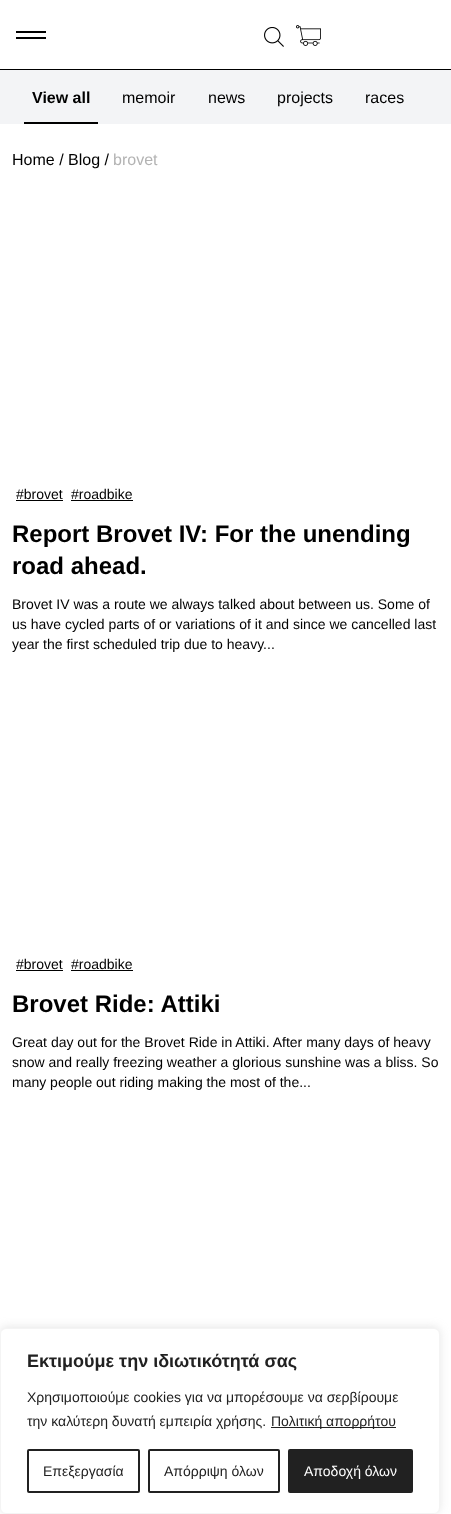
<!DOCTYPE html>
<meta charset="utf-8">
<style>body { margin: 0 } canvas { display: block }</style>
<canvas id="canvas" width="451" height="1514"></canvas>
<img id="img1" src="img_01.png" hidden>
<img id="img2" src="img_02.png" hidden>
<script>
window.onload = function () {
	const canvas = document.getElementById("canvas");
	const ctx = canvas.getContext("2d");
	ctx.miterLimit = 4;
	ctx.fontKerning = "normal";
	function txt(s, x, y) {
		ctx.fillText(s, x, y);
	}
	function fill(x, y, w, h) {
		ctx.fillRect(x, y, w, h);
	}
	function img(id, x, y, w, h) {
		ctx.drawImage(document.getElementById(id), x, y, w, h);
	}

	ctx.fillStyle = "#FFFFFF";
	fill(0, 0, 451, 1514);
	ctx.fillStyle = "#000000";
	fill(0, 69, 451, 1);
	fill(16, 31, 30, 2);
	fill(16, 37, 30, 2);
	img("img1", 264, 27, 20, 20);
	img("img2", 296, 25, 25, 21);
	ctx.fillStyle = "#F3F4F6";
	fill(0, 70, 451, 54);
	ctx.fillStyle = "#000000";
	fill(24, 122, 74, 2);
	fill(16, 500, 47, 1);
	fill(71, 500, 62, 1);
	fill(16, 970, 47, 1);
	fill(71, 970, 62, 1);
	ctx.fillStyle = "rgba(172, 171, 171, 0.3)";
	ctx.filter = "blur(5px)";
	ctx.beginPath();
	ctx.roundRect(0, 1327, 440, 186, 6);
	ctx.fill();
	ctx.filter = "none";
	ctx.fillStyle = "#FFFFFF";
	ctx.beginPath();
	ctx.roundRect(0.5, 1328.5, 439, 185, 5.5);
	ctx.fill();
	ctx.strokeStyle = "#F4F4F4";
	ctx.stroke();
	ctx.fillStyle = "#212121";
	fill(271, 1427, 125, 1);
	ctx.beginPath();
	ctx.roundRect(28, 1450, 111, 42, 1);
	ctx.strokeStyle = "#212121";
	ctx.lineWidth = 2;
	ctx.stroke();
	ctx.beginPath();
	ctx.roundRect(149, 1450, 130, 42, 1);
	ctx.stroke();
	ctx.beginPath();
	ctx.roundRect(289, 1450, 123, 42, 1);
	ctx.fill();
	ctx.stroke();
	ctx.font = "bold 16px Liberation Sans";
	ctx.fillStyle = "#000000";
	txt("View all", 32, 103);
	ctx.font = "16px Liberation Sans";
	txt("memoir", 122, 103);
	txt("news", 208, 103);
	txt("projects", 277, 103);
	txt("races", 365, 103);
	txt("Home / Blog /", 12, 165);
	ctx.fillStyle = "#B3B3B3";
	txt("brovet", 113, 165);
	ctx.font = "14px Liberation Sans";
	ctx.fillStyle = "#000000";
	txt("#brovet", 16, 499);
	txt("#roadbike", 71, 499);
	ctx.font = "bold 24px Liberation Sans";
	txt("Report Brovet IV: For the unending", 12, 542);
	txt("road ahead.", 12, 574);
	ctx.font = "14px Liberation Sans";
	txt("Brovet IV was a route we always talked about between us. Some of", 12, 609);
	txt("us have cycled parts of or variations of it and since we cancelled last", 12, 629);
	txt("year the first scheduled trip due to heavy...", 12, 649);
	txt("#brovet", 16, 969);
	txt("#roadbike", 71, 969);
	ctx.font = "bold 24px Liberation Sans";
	txt("Brovet Ride: Attiki", 12, 1012);
	ctx.font = "14px Liberation Sans";
	txt("Great day out for the Brovet Ride in Attiki. After many days of heavy", 12, 1047);
	txt("snow and really freezing weather a glorious sunshine was a bliss. So", 12, 1067);
	txt("many people out riding making the most of the...", 12, 1087);
	ctx.font = "bold 18px Liberation Sans";
	ctx.fillStyle = "#212121";
	txt("Εκτιμούμε την ιδιωτικότητά σας", 27, 1367);
	ctx.font = "14px Liberation Sans";
	txt("Χρησιμοποιούμε cookies για να μπορέσουμε να σερβίρουμε", 27, 1402);
	txt("την καλύτερη δυνατή εμπειρία χρήσης.", 27, 1426);
	txt("Πολιτική απορρήτου", 271, 1426);
	txt("Επεξεργασία", 43, 1476);
	txt("Απόρριψη όλων", 164, 1476);
	ctx.fillStyle = "#FFFFFF";
	txt("Αποδοχή όλων", 304, 1476);
};
</script>
